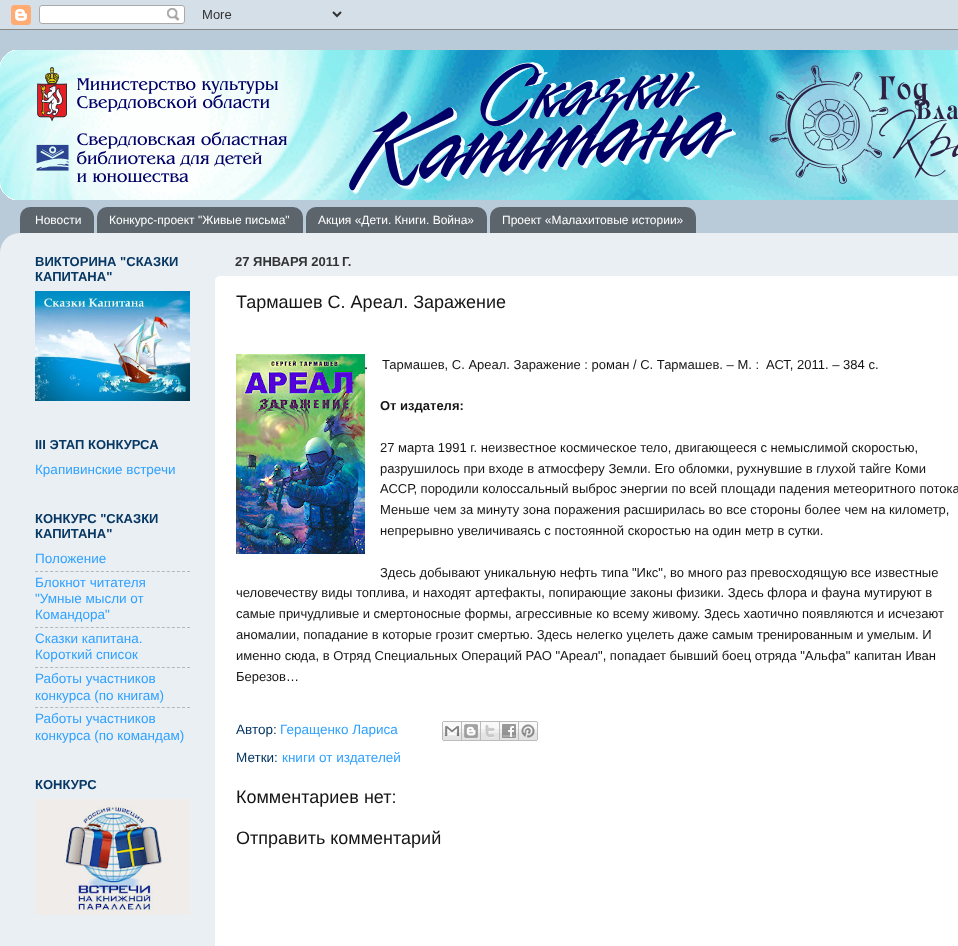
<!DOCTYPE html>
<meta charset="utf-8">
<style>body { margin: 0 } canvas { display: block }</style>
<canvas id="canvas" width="958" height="946"></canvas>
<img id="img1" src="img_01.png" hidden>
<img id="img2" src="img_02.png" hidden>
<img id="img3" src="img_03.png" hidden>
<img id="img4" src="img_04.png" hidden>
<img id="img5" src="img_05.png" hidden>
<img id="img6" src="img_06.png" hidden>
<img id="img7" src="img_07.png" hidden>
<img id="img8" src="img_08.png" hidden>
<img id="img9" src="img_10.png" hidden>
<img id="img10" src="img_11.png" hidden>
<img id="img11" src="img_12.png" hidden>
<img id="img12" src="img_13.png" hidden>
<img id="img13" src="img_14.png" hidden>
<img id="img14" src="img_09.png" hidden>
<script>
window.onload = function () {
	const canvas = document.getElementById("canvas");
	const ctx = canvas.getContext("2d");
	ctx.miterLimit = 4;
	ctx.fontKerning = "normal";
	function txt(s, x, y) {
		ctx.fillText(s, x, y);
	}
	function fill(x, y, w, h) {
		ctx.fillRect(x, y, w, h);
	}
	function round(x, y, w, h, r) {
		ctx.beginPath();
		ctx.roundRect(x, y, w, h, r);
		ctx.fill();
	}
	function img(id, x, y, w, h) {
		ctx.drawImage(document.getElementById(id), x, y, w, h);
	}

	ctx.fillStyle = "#B9CAD9";
	fill(0, 0, 958, 946);
	img("img1", 0, 0, 958, 30);
	img("img2", 0, 50, 958, 150);
	img("img3", 20, 207, 74, 26);
	img("img4", 97, 207, 206, 26);
	img("img5", 306, 207, 181, 26);
	img("img4", 490, 207, 206, 26);
	img("img6", 0, 233, 958, 713);
	img("img7", 35, 291, 155, 110);
	ctx.beginPath();
	ctx.moveTo(35, 571.5);
	ctx.lineTo(190, 571.5);
	ctx.strokeStyle = "#B5B8BA";
	ctx.setLineDash([3, 2.07]);
	ctx.stroke();
	ctx.beginPath();
	ctx.moveTo(35, 627.5);
	ctx.lineTo(190, 627.5);
	ctx.stroke();
	ctx.beginPath();
	ctx.moveTo(35, 667.5);
	ctx.lineTo(190, 667.5);
	ctx.stroke();
	ctx.beginPath();
	ctx.moveTo(35, 707.5);
	ctx.lineTo(190, 707.5);
	ctx.stroke();
	img("img8", 35, 799, 155, 116);
	ctx.fillStyle = "#FFFFFF";
	round(215, 276, 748, 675, 5);
	img("img9", 442, 721, 20, 20);
	img("img10", 462, 721, 19, 20);
	img("img11", 481, 721, 19, 20);
	img("img12", 500, 721, 19, 20);
	img("img13", 519, 721, 19, 20);
	ctx.font = "12px Liberation Sans";
	txt("Новости", 35, 224);
	txt("Конкурс-проект \"Живые письма\"", 109, 224);
	txt("Акция «Дети. Книги. Война»", 318, 224);
	txt("Проект «Малахитовые истории»", 502, 224);
	ctx.font = "bold 13px Liberation Sans";
	ctx.fillStyle = "#073763";
	txt("ВИКТОРИНА \"СКАЗКИ", 35, 266);
	txt("КАПИТАНА\"", 35, 281);
	txt("III ЭТАП КОНКУРСА", 35, 449);
	ctx.font = "13.5px Liberation Sans";
	ctx.fillStyle = "#2FA1FF";
	txt("Крапивинские встречи", 35, 474);
	ctx.font = "bold 13px Liberation Sans";
	ctx.fillStyle = "#073763";
	txt("КОНКУРС \"СКАЗКИ", 35, 523);
	txt("КАПИТАНА\"", 35, 538);
	ctx.font = "13.5px Liberation Sans";
	ctx.fillStyle = "#2FA1FF";
	txt("Положение", 35, 563);
	txt("Блокнот читателя", 35, 587);
	txt("\"Умные мысли от", 35, 603);
	txt("Командора\"", 35, 619);
	txt("Сказки капитана.", 35, 643);
	txt("Короткий список", 35, 659);
	txt("Работы участников", 35, 683);
	txt("конкурса (по книгам)", 35, 700);
	txt("Работы участников", 35, 723);
	txt("конкурса (по командам)", 35, 740);
	ctx.font = "bold 13px Liberation Sans";
	ctx.fillStyle = "#073763";
	txt("КОНКУРС", 35, 789);
	ctx.fillStyle = "#333333";
	txt("27 ЯНВАРЯ 2011 Г.", 235, 266);
	ctx.font = "18px Liberation Sans";
	ctx.fillStyle = "#151515";
	txt("Тармашев С. Ареал. Заражение", 236, 308);
	ctx.font = "16px Liberation Serif";
	txt(".", 364, 369);
	img("img14", 236, 354, 129, 200);
	ctx.font = "13px Liberation Sans";
	txt("Тармашев, С. Ареал. Заражение : роман / С. Тармашев. – М. :", 382, 369);
	txt("АСТ, 2011. – 384 с.", 766, 369);
	ctx.font = "bold 13px Liberation Sans";
	txt("От издателя:", 380, 410);
	ctx.font = "13px Liberation Sans";
	txt("27 марта 1991 г. неизвестное космическое тело, двигающееся с немыслимой скоростью,", 380, 452);
	txt("разрушилось при входе в атмосферу Земли. Его обломки, рухнувшие в глухой тайге Коми", 380, 473);
	txt("АССР, породили колоссальный выброс энергии по всей площади падения метеоритного потока", 380, 493);
	txt("Меньше чем за минуту зона поражения расширилась во все стороны более чем на километр,", 380, 514);
	txt("непрерывно увеличиваясь с постоянной скоростью на один метр в сутки.", 380, 535);
	txt("Здесь добывают уникальную нефть типа \"Икс\", во много раз превосходящую все известные", 380, 577);
	txt("человечеству виды топлива, и находят артефакты, попирающие законы физики. Здесь флора и фауна мутируют в", 236, 597);
	txt("самые причудливые и смертоносные формы, агрессивные ко всему живому. Здесь хаотично появляются и исчезают", 236, 618);
	txt("аномалии, попадание в которые грозит смертью. Здесь нелегко уцелеть даже самым тренированным и умелым. И", 236, 639);
	txt("именно сюда, в Отряд Специальных Операций РАО \"Ареал\", попадает бывший боец отряда \"Альфа\" капитан Иван", 236, 660);
	txt("Березов…", 236, 681);
	ctx.font = "13.5px Liberation Sans";
	ctx.fillStyle = "#073763";
	txt("Автор:", 236, 734);
	ctx.fillStyle = "#2FA1FF";
	txt("Геращенко Лариса", 280, 734);
	ctx.fillStyle = "#073763";
	txt("Метки:", 236, 762);
	ctx.fillStyle = "#2FA1FF";
	txt("книги от издателей", 282, 762);
	ctx.font = "18px Liberation Sans";
	ctx.fillStyle = "#151515";
	txt("Комментариев нет:", 236, 803);
	txt("Отправить комментарий", 236, 844);
};
</script>
